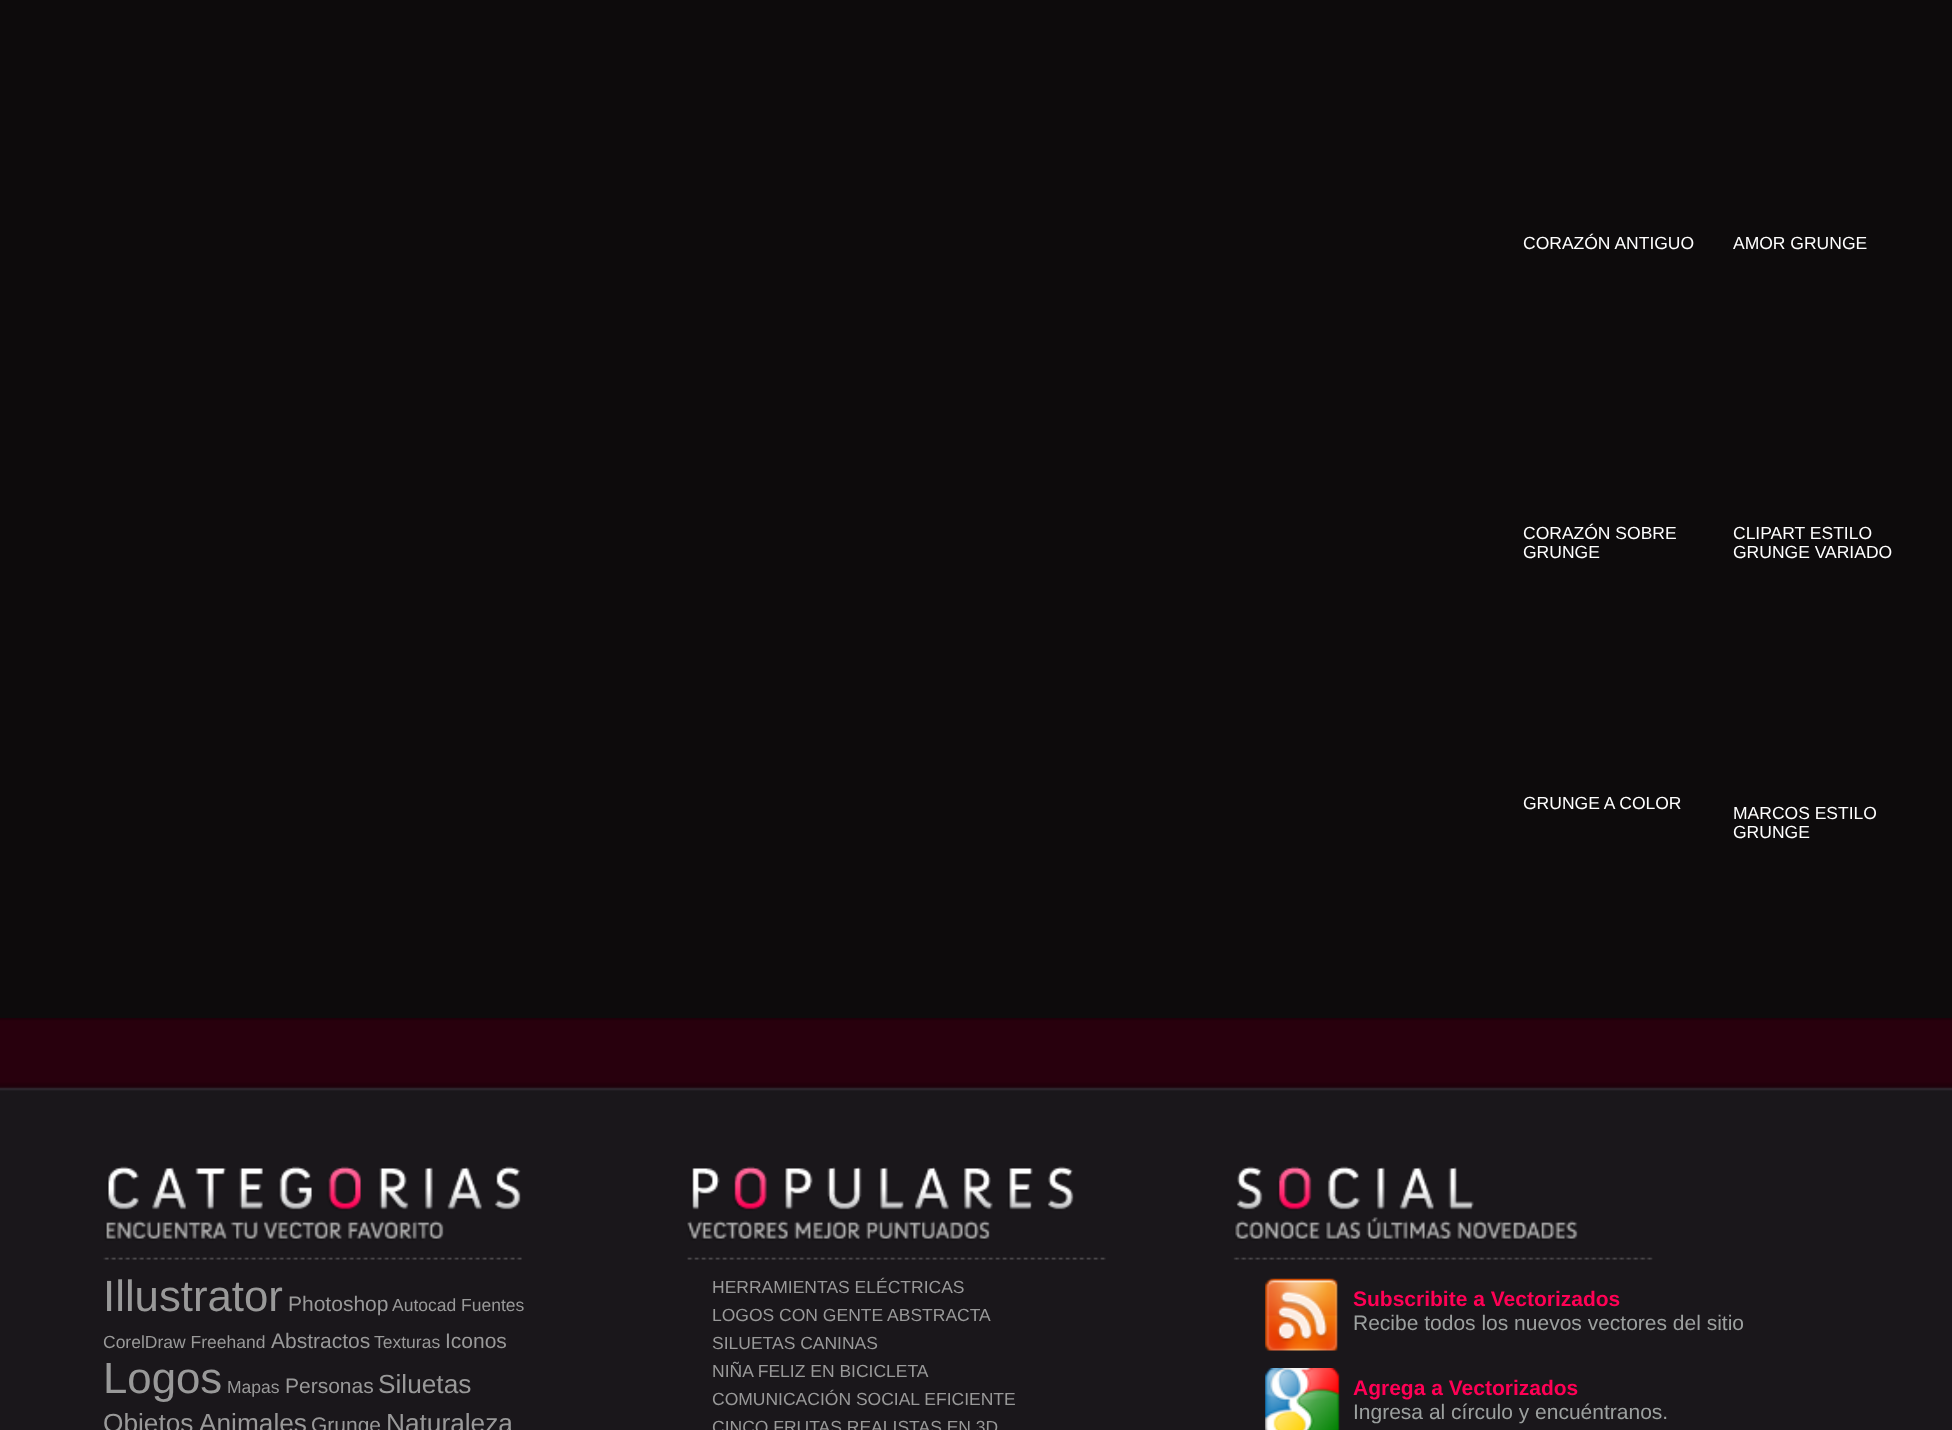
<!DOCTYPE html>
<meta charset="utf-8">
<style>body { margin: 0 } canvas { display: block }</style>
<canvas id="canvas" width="1952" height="1430"></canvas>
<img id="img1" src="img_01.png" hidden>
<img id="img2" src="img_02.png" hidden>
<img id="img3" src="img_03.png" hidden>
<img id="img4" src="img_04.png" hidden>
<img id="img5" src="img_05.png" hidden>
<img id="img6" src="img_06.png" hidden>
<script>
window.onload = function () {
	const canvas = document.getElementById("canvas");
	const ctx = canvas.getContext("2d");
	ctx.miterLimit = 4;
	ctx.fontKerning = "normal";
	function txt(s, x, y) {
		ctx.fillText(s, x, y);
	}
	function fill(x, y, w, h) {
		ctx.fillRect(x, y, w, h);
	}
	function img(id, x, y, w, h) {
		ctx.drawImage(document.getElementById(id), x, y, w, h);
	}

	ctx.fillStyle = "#0D0B0C";
	fill(0, 0, 1952, 1430);
	ctx.fillStyle = "#1A171B";
	fill(0, 1091, 1952, 339);
	img("img1", 0, 1018, 1952, 73);
	img("img2", 103, 1166, 419, 94);
	img("img3", 686, 1166, 420, 94);
	img("img4", 1233, 1166, 420, 94);
	img("img5", 1265, 1278, 73, 73);
	img("img6", 1265, 1368, 75, 62);
	ctx.font = "17.5px Liberation Sans";
	ctx.fillStyle = "#FFFFFF";
	txt("CORAZÓN ANTIGUO", 1523, 249);
	txt("AMOR GRUNGE", 1733, 249);
	txt("CORAZÓN SOBRE", 1523, 539);
	txt("GRUNGE", 1523, 558);
	txt("CLIPART ESTILO", 1733, 539);
	txt("GRUNGE VARIADO", 1733, 558);
	txt("GRUNGE A COLOR", 1523, 809);
	txt("MARCOS ESTILO", 1733, 819);
	txt("GRUNGE", 1733, 838);
	ctx.font = "43.75px Liberation Sans";
	ctx.fillStyle = "#999999";
	txt("Illustrator", 103, 1311);
	ctx.font = "21px Liberation Sans";
	txt("Photoshop", 288, 1311);
	ctx.font = "17.5px Liberation Sans";
	txt("Autocad Fuentes", 392, 1311);
	txt("CorelDraw Freehand", 103, 1348);
	ctx.font = "21px Liberation Sans";
	txt("Abstractos", 271, 1348);
	ctx.font = "17.5px Liberation Sans";
	txt("Texturas", 374, 1348);
	ctx.font = "21px Liberation Sans";
	txt("Iconos", 445, 1348);
	ctx.font = "43.75px Liberation Sans";
	txt("Logos", 103, 1393);
	ctx.font = "17.5px Liberation Sans";
	txt("Mapas", 227, 1393);
	ctx.font = "21px Liberation Sans";
	txt("Personas", 285, 1393);
	ctx.font = "26.25px Liberation Sans";
	txt("Siluetas", 378, 1393);
	txt("Objetos", 103, 1432);
	txt("Animales", 199, 1432);
	ctx.font = "21px Liberation Sans";
	txt("Grunge", 311, 1432);
	ctx.font = "26.25px Liberation Sans";
	txt("Naturaleza", 386, 1432);
	ctx.font = "17.5px Liberation Sans";
	txt("HERRAMIENTAS ELÉCTRICAS", 712, 1293);
	txt("LOGOS CON GENTE ABSTRACTA", 712, 1321);
	txt("SILUETAS CANINAS", 712, 1349);
	txt("NIÑA FELIZ EN BICICLETA", 712, 1377);
	txt("COMUNICACIÓN SOCIAL EFICIENTE", 712, 1405);
	txt("CINCO FRUTAS REALISTAS EN 3D", 712, 1433);
	ctx.font = "bold 21px Liberation Sans";
	ctx.fillStyle = "#FF0055";
	txt("Subscribite a Vectorizados", 1353, 1306);
	ctx.font = "21px Liberation Sans";
	ctx.fillStyle = "#9CA09F";
	txt("Recibe todos los nuevos vectores del sitio", 1353, 1330);
	ctx.font = "bold 21px Liberation Sans";
	ctx.fillStyle = "#FF0055";
	txt("Agrega a Vectorizados", 1353, 1395);
	ctx.font = "21px Liberation Sans";
	ctx.fillStyle = "#9CA09F";
	txt("Ingresa al círculo y encuéntranos.", 1353, 1419);
};
</script>
